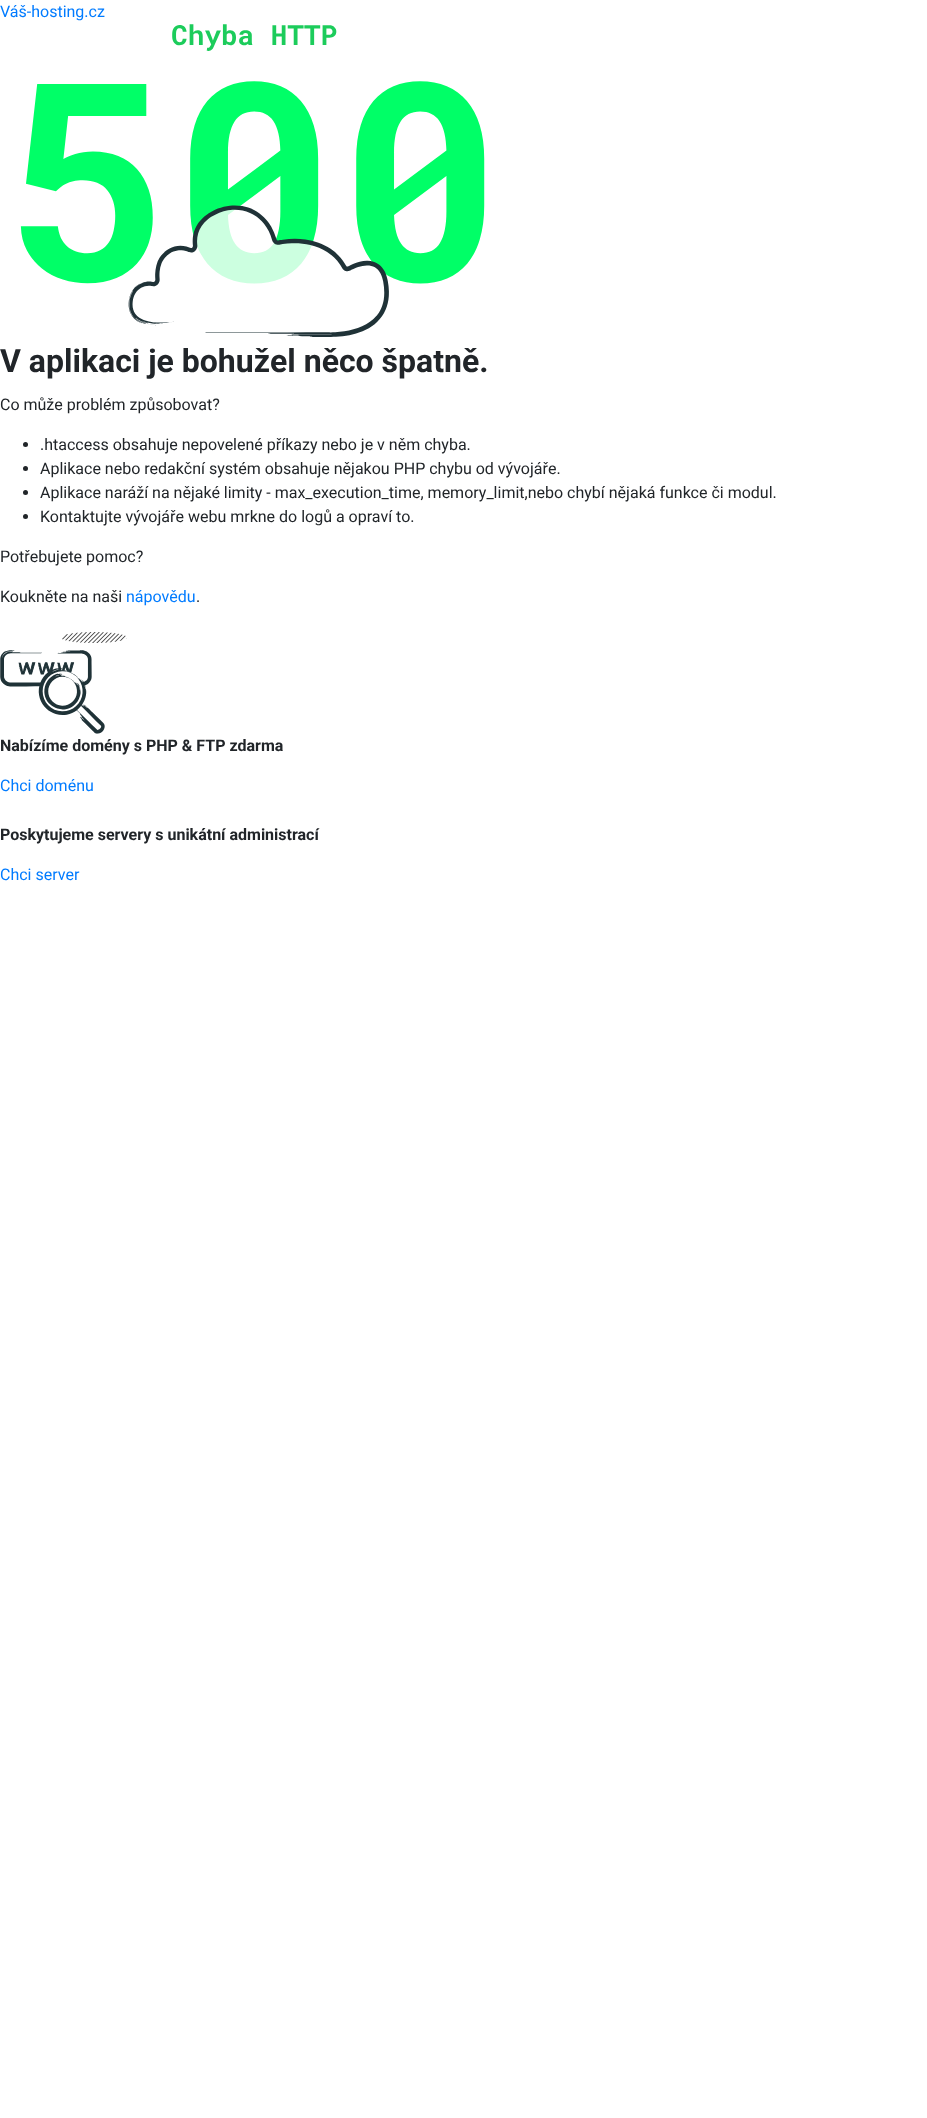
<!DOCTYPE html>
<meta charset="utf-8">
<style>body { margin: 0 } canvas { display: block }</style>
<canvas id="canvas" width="927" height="2118"></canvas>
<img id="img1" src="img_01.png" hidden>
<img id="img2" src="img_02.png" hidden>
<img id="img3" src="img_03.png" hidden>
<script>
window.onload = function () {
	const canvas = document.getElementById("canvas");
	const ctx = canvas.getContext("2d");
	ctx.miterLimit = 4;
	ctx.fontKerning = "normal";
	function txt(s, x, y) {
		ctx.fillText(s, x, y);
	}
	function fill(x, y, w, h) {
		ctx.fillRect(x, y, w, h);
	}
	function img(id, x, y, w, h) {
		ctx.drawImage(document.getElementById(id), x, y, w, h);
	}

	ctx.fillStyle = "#FFFFFF";
	fill(0, 0, 927, 2118);
	img("img1", 20, 24, 465, 313);
	ctx.fillStyle = "#212529";
	ctx.beginPath();
	ctx.arc(25.5, 444.5, 2.5, 0, Math.PI * 2);
	ctx.fill();
	ctx.beginPath();
	ctx.arc(25.5, 468.5, 2.5, 0, Math.PI * 2);
	ctx.fill();
	ctx.beginPath();
	ctx.arc(25.5, 492.5, 2.5, 0, Math.PI * 2);
	ctx.fill();
	ctx.beginPath();
	ctx.arc(25.5, 516.5, 2.5, 0, Math.PI * 2);
	ctx.fill();
	img("img2", 62, 632, 65, 11);
	img("img3", 0, 650, 105, 84);
	ctx.font = "16px Roboto";
	ctx.fillStyle = "#007BFF";
	txt("Váš-hosting.cz", 0, 17);
	ctx.font = "bold 32px Roboto";
	ctx.fillStyle = "#212529";
	txt("V aplikaci je bohužel něco špatně.", 0, 372);
	ctx.font = "16px Roboto";
	txt("Co může problém způsobovat?", 0, 410);
	txt(".htaccess obsahuje nepovelené příkazy nebo je v něm chyba.", 40, 450);
	txt("Aplikace nebo redakční systém obsahuje nějakou PHP chybu od vývojáře.", 40, 474);
	txt("Aplikace naráží na nějaké limity - max_execution_time, memory_limit,nebo chybí nějaká funkce či modul.", 40, 498);
	txt("Kontaktujte vývojáře webu mrkne do logů a opraví to.", 40, 522);
	txt("Potřebujete pomoc?", 0, 562);
	txt("Koukněte na naši", 0, 602);
	ctx.fillStyle = "#007BFF";
	txt("nápovědu", 126, 602);
	ctx.fillStyle = "#212529";
	txt(".", 196, 602);
	ctx.font = "bold 16px Roboto";
	txt("Nabízíme domény s PHP & FTP zdarma", 0, 751);
	ctx.font = "16px Roboto";
	ctx.fillStyle = "#007BFF";
	txt("Chci doménu", 0, 791);
	ctx.font = "bold 16px Roboto";
	ctx.fillStyle = "#212529";
	txt("Poskytujeme servery s unikátní administrací", 0, 840);
	ctx.font = "16px Roboto";
	ctx.fillStyle = "#007BFF";
	txt("Chci server", 0, 880);
};
</script>
